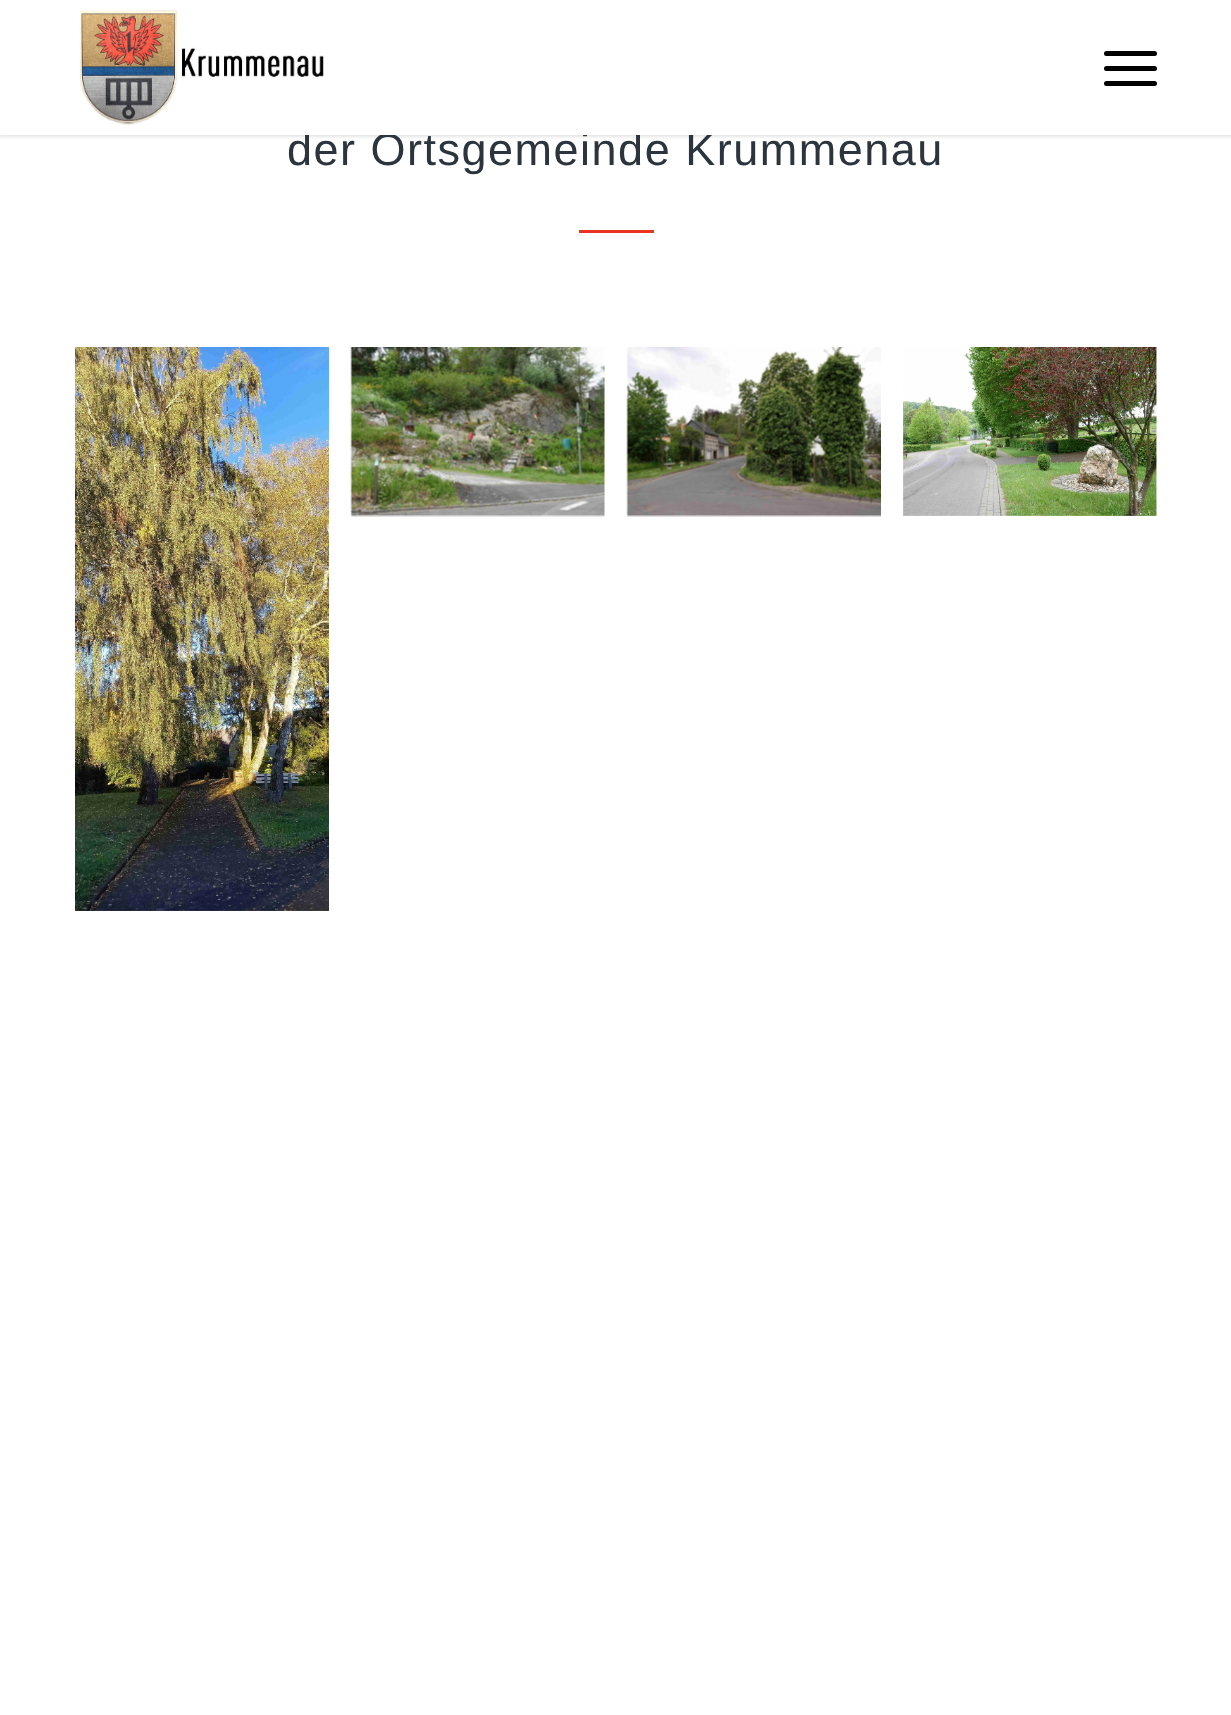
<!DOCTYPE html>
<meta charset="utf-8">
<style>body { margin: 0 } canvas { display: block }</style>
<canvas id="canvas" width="1231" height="1715"></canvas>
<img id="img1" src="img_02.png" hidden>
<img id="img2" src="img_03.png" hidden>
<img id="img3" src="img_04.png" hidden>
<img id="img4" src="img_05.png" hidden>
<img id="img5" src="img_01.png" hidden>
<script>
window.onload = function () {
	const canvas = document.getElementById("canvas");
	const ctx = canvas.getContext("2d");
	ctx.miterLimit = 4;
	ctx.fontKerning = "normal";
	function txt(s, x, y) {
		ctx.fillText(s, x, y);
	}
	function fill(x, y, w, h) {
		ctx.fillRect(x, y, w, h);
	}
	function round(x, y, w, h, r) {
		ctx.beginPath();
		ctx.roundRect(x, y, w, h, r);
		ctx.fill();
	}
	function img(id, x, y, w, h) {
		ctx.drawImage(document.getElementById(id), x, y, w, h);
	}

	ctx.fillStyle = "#FFFFFF";
	fill(0, 0, 1231, 1715);
	ctx.fillStyle = "rgba(0, 0, 0, 0.1)";
	ctx.filter = "blur(1.5px)";
	ctx.beginPath();
	ctx.rect(-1, -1, 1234, 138);
	ctx.fill();
	ctx.filter = "none";
	ctx.fillStyle = "#E93323";
	fill(579, 230, 75, 3);
	img("img1", 75, 347, 254, 564);
	img("img2", 350, 347, 255, 170);
	img("img3", 626, 347, 255, 170);
	img("img4", 903, 347, 254, 169);
	ctx.letterSpacing = "1.5px";
	ctx.font = "45px Liberation Sans";
	ctx.fillStyle = "#2C353D";
	txt("der Ortsgemeinde Krummenau", 287, 165);
	ctx.fillStyle = "#FFFFFF";
	fill(0, 0, 1231, 135);
	ctx.fillStyle = "#000000";
	round(1104, 81, 53, 5, 2.5);
	round(1104, 51, 53, 5, 2.5);
	round(1104, 66, 53, 5, 2.5);
	img("img5", 79, 10, 245, 115);
};
</script>
